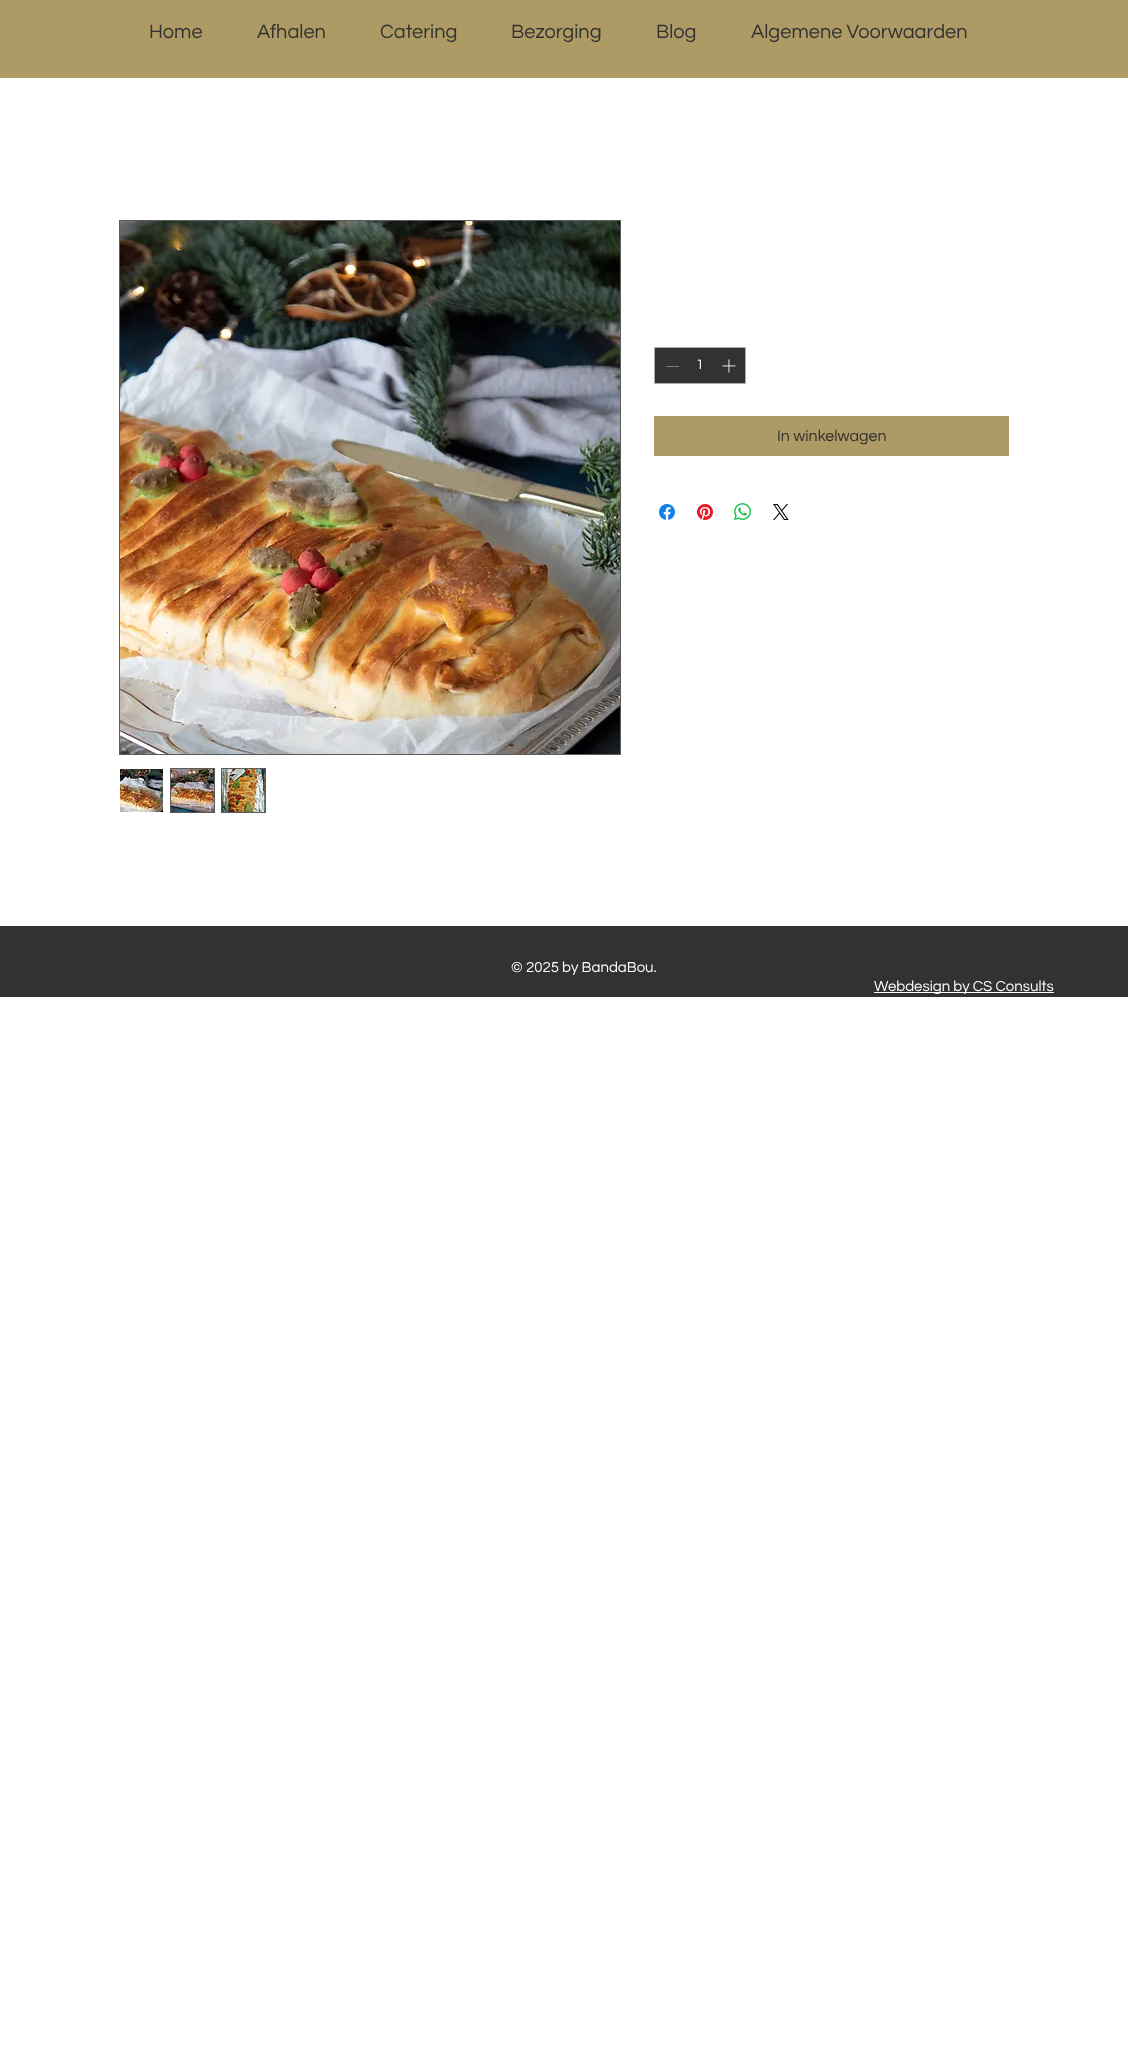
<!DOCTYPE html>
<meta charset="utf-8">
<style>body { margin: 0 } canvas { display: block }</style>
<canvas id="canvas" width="1128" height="2051"></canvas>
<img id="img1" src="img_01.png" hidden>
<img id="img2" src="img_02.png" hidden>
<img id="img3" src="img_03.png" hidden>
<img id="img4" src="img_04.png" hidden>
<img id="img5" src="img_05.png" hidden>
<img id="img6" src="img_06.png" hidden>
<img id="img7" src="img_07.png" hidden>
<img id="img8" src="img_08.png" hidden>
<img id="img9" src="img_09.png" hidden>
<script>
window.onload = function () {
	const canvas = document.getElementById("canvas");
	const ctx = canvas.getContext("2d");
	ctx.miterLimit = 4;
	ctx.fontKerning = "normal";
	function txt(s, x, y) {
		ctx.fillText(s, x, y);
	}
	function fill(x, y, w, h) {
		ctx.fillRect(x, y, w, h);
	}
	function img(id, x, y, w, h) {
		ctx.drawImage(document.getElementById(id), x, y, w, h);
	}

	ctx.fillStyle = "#FFFFFF";
	fill(0, 0, 1128, 2051);
	ctx.fillStyle = "#AE9A64";
	fill(0, 0, 1128, 78);
	ctx.strokeStyle = "#5B5B5B";
	ctx.strokeRect(119.5, 220.5, 501, 534);
	img("img1", 120, 221, 500, 533);
	img("img2", 120, 769, 43, 43);
	ctx.strokeRect(170.5, 768.5, 44, 44);
	img("img3", 171, 769, 43, 43);
	ctx.strokeRect(221.5, 768.5, 44, 44);
	img("img4", 222, 769, 43, 43);
	ctx.fillStyle = "#323232";
	ctx.beginPath();
	ctx.rect(654.5, 347.5, 91, 36);
	ctx.fill();
	ctx.strokeStyle = "#ADADAD";
	ctx.stroke();
	ctx.fillStyle = "#7D7D7D";
	fill(666, 366, 13, 1);
	img("img5", 722, 359, 14, 14);
	ctx.fillStyle = "#AE9A64";
	fill(654, 416, 355, 40);
	img("img6", 659, 504, 16, 16);
	img("img7", 697, 504, 16, 16);
	img("img8", 734, 503, 17, 17);
	img("img9", 773, 504, 16, 16);
	ctx.fillStyle = "#323232";
	fill(0, 926, 1128, 71);
	ctx.fillStyle = "#FFFFFF";
	fill(874, 992, 180, 1);
	ctx.font = "20px Questrial";
	ctx.fillStyle = "#323232";
	txt("Home", 149, 38);
	txt("Afhalen", 257, 38);
	txt("Catering", 380, 38);
	txt("Bezorging", 511, 38);
	txt("Blog", 656, 38);
	txt("Algemene Voorwaarden", 751, 38);
	ctx.font = "14px Questrial";
	ctx.fillStyle = "#FFFFFF";
	txt("1", 696, 369);
	ctx.font = "16px Questrial";
	ctx.fillStyle = "#323232";
	txt("In winkelwagen", 777, 441);
	ctx.font = "15px Questrial";
	ctx.fillStyle = "#FFFFFF";
	txt("© 2025 by BandaBou.", 511, 972);
	txt("Webdesign by CS Consults", 874, 991);
};
</script>
